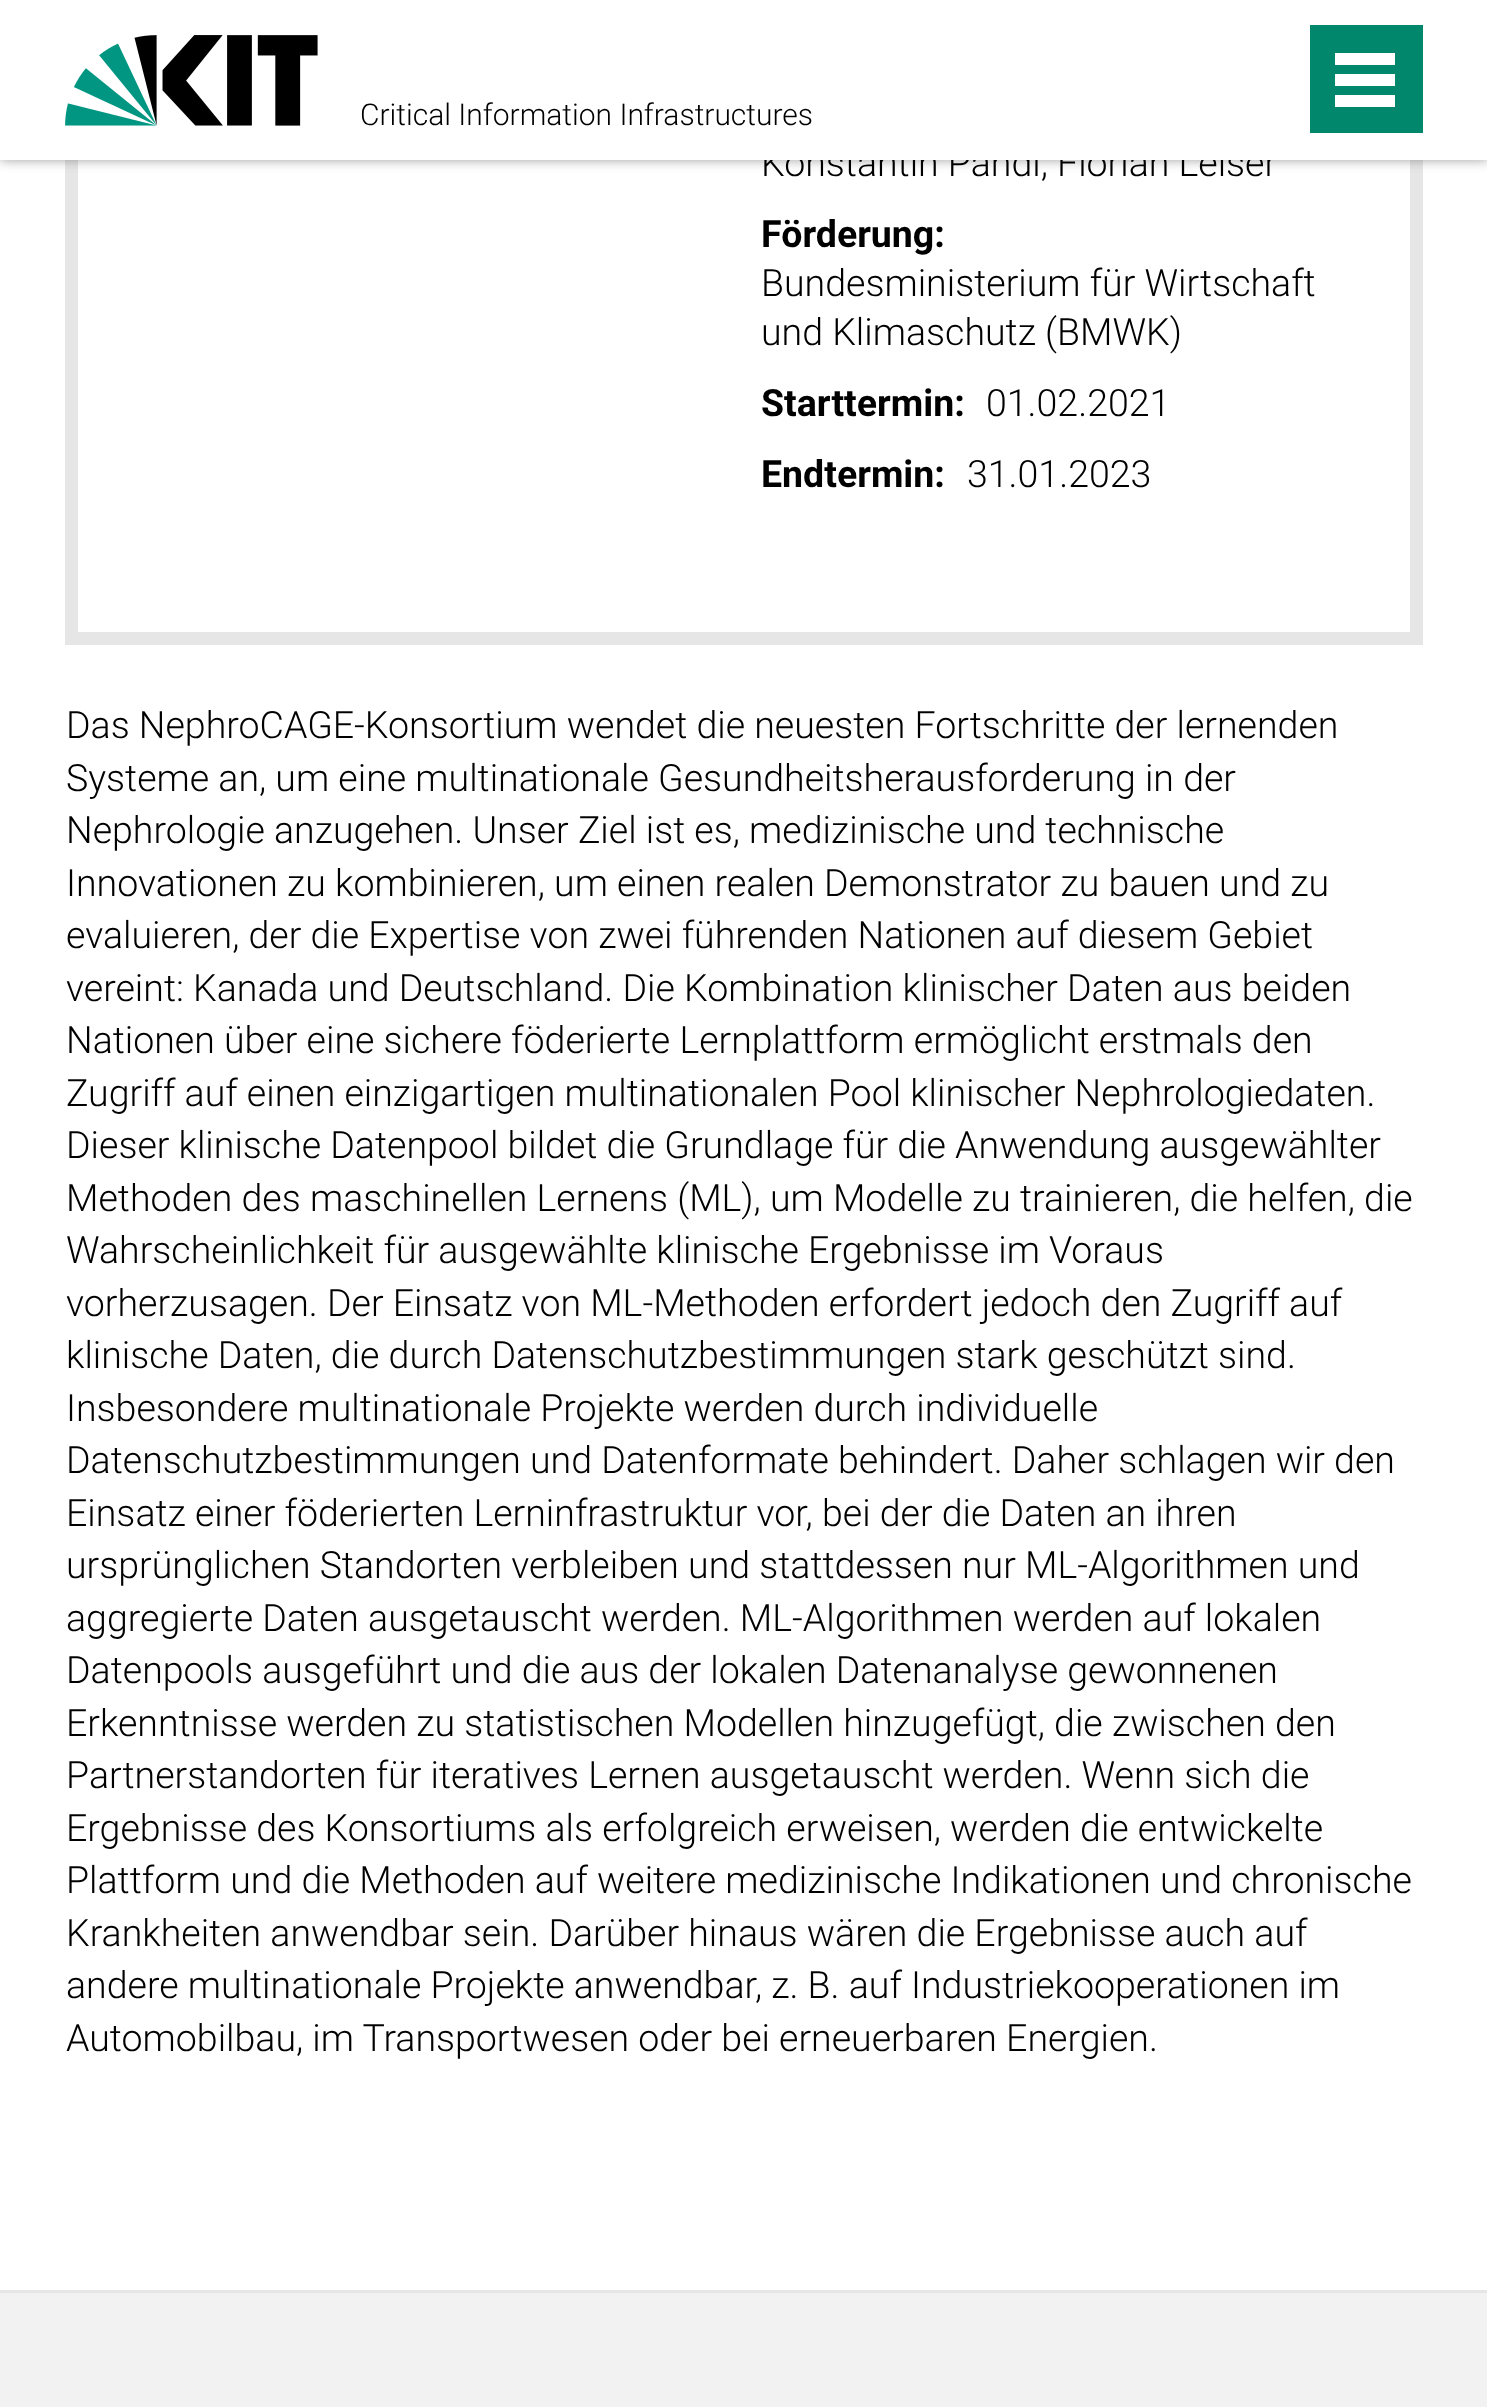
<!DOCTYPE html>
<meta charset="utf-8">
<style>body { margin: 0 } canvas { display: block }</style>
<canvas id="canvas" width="1487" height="2407"></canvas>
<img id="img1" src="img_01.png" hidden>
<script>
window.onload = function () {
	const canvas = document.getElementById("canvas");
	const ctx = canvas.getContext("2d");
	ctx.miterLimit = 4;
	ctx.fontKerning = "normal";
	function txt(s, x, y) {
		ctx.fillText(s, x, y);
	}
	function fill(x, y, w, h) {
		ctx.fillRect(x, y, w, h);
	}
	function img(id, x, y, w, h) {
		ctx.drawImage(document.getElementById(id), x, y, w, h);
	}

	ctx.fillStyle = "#FFFFFF";
	fill(0, 0, 1487, 2407);
	ctx.strokeStyle = "#E6E6E6";
	ctx.lineWidth = 13;
	ctx.strokeRect(71.5, -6.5, 1345, 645);
	ctx.fillStyle = "rgba(64, 64, 64, 0.5)";
	ctx.filter = "blur(6px)";
	ctx.beginPath();
	ctx.rect(0, 0, 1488, 160);
	ctx.fill();
	ctx.filter = "none";
	ctx.fillStyle = "#F2F2F2";
	fill(0, 2293, 1487, 114);
	ctx.fillStyle = "#E6E6E6";
	fill(0, 2290, 1487, 3);
	ctx.font = "300 37.5px Roboto";
	ctx.fillStyle = "#000000";
	txt("Konstantin Pandl, Florian Leiser", 761, 176);
	ctx.fillStyle = "#FFFFFF";
	fill(0, 0, 1487, 160);
	ctx.font = "300 30px Roboto";
	ctx.fillStyle = "#000000";
	txt("Critical Information Infrastructures", 360, 125);
	img("img1", 65, 35, 253, 91);
	ctx.fillStyle = "#00876C";
	fill(1310, 25, 113, 108);
	ctx.fillStyle = "#FFFFFF";
	fill(1335, 53, 60, 12);
	fill(1335, 74, 60, 12);
	fill(1335, 95, 60, 12);
	ctx.font = "bold 37.5px Roboto";
	ctx.fillStyle = "#000000";
	txt("Förderung:", 761, 247);
	ctx.font = "300 37.5px Roboto";
	txt("Bundesministerium für Wirtschaft", 761, 296);
	txt("und Klimaschutz (BMWK)", 761, 345);
	ctx.font = "bold 37.5px Roboto";
	txt("Starttermin:", 761, 416);
	ctx.font = "300 37.5px Roboto";
	txt("01.02.2021", 986, 416);
	ctx.font = "bold 37.5px Roboto";
	txt("Endtermin:", 761, 487);
	ctx.font = "300 37.5px Roboto";
	txt("31.01.2023", 967, 487);
	txt("Das NephroCAGE-Konsortium wendet die neuesten Fortschritte der lernenden", 66, 738);
	txt("Systeme an, um eine multinationale Gesundheitsherausforderung in der", 66, 791);
	txt("Nephrologie anzugehen. Unser Ziel ist es, medizinische und technische", 66, 843);
	txt("Innovationen zu kombinieren, um einen realen Demonstrator zu bauen und zu", 66, 896);
	txt("evaluieren, der die Expertise von zwei führenden Nationen auf diesem Gebiet", 66, 948);
	txt("vereint: Kanada und Deutschland. Die Kombination klinischer Daten aus beiden", 66, 1001);
	txt("Nationen über eine sichere föderierte Lernplattform ermöglicht erstmals den", 66, 1053);
	txt("Zugriff auf einen einzigartigen multinationalen Pool klinischer Nephrologiedaten.", 66, 1106);
	txt("Dieser klinische Datenpool bildet die Grundlage für die Anwendung ausgewählter", 66, 1158);
	txt("Methoden des maschinellen Lernens (ML), um Modelle zu trainieren, die helfen, die", 66, 1211);
	txt("Wahrscheinlichkeit für ausgewählte klinische Ergebnisse im Voraus", 66, 1263);
	txt("vorherzusagen. Der Einsatz von ML-Methoden erfordert jedoch den Zugriff auf", 66, 1316);
	txt("klinische Daten, die durch Datenschutzbestimmungen stark geschützt sind.", 66, 1368);
	txt("Insbesondere multinationale Projekte werden durch individuelle", 66, 1421);
	txt("Datenschutzbestimmungen und Datenformate behindert. Daher schlagen wir den", 66, 1473);
	txt("Einsatz einer föderierten Lerninfrastruktur vor, bei der die Daten an ihren", 66, 1526);
	txt("ursprünglichen Standorten verbleiben und stattdessen nur ML-Algorithmen und", 66, 1578);
	txt("aggregierte Daten ausgetauscht werden. ML-Algorithmen werden auf lokalen", 66, 1631);
	txt("Datenpools ausgeführt und die aus der lokalen Datenanalyse gewonnenen", 66, 1683);
	txt("Erkenntnisse werden zu statistischen Modellen hinzugefügt, die zwischen den", 66, 1736);
	txt("Partnerstandorten für iteratives Lernen ausgetauscht werden. Wenn sich die", 66, 1788);
	txt("Ergebnisse des Konsortiums als erfolgreich erweisen, werden die entwickelte", 66, 1841);
	txt("Plattform und die Methoden auf weitere medizinische Indikationen und chronische", 66, 1893);
	txt("Krankheiten anwendbar sein. Darüber hinaus wären die Ergebnisse auch auf", 66, 1946);
	txt("andere multinationale Projekte anwendbar, z. B. auf Industriekooperationen im", 66, 1998);
	txt("Automobilbau, im Transportwesen oder bei erneuerbaren Energien.", 66, 2051);
};
</script>
